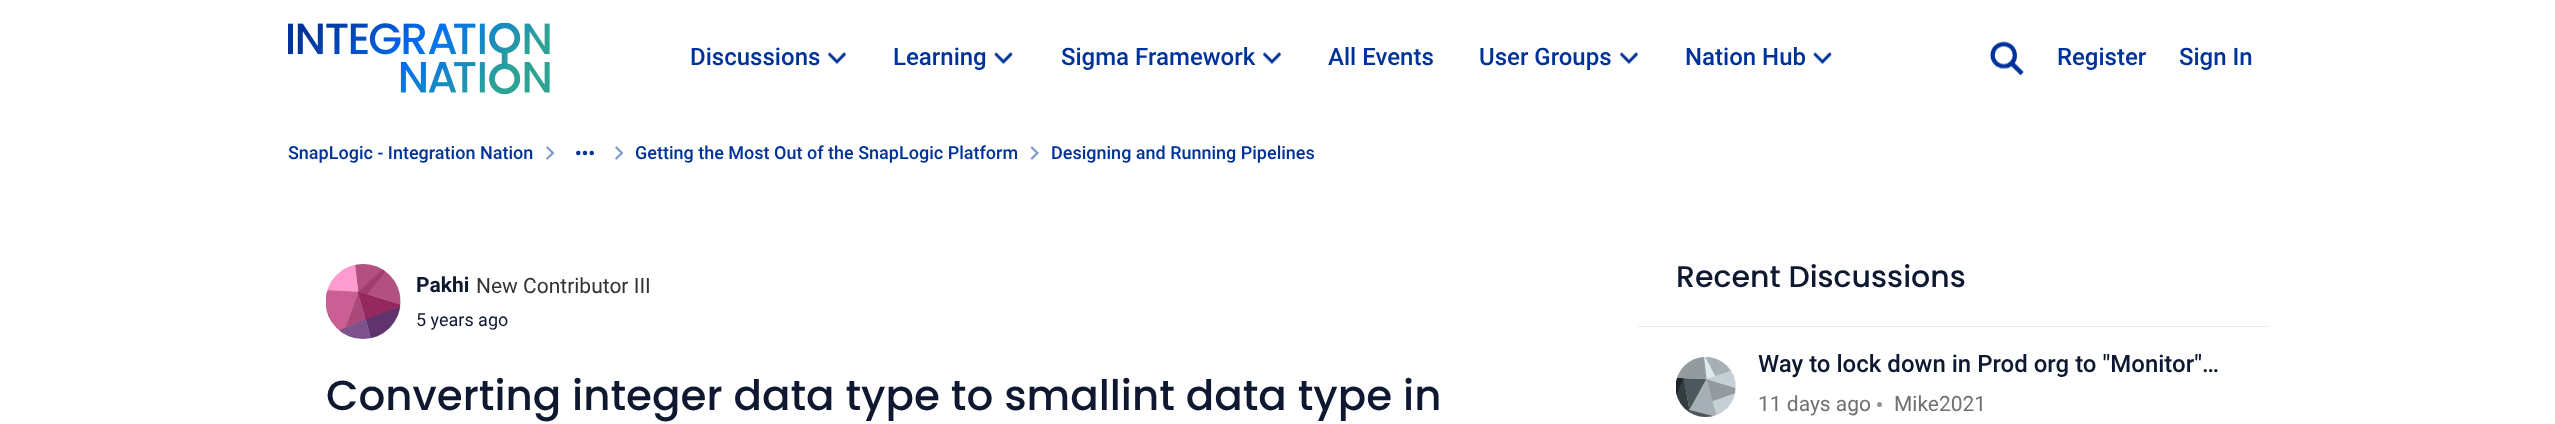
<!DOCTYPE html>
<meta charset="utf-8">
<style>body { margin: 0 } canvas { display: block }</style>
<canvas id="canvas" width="2555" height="424"></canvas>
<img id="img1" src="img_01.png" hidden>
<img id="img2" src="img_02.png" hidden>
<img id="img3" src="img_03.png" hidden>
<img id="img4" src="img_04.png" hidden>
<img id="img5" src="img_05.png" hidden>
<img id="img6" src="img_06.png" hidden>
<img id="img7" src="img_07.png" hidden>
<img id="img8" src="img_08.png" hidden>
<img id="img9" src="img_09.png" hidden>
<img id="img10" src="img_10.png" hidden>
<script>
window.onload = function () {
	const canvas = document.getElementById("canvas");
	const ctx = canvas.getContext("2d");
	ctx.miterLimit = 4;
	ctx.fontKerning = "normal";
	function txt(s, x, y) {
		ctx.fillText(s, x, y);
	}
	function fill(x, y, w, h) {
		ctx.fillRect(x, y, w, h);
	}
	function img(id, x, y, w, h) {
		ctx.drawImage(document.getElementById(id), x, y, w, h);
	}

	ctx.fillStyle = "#FFFFFF";
	fill(0, 0, 2555, 424);
	img("img1", 288, 23, 262, 71);
	img("img2", 828, 52, 18, 12);
	img("img3", 994, 52, 19, 12);
	img("img4", 1263, 52, 18, 12);
	img("img2", 1620, 52, 18, 12);
	img("img3", 1813, 52, 19, 12);
	img("img5", 1990, 41, 34, 35);
	img("img6", 546, 146, 9, 14);
	img("img7", 576, 150, 18, 6);
	img("img6", 615, 146, 9, 14);
	img("img8", 1030, 146, 9, 14);
	ctx.fillStyle = "#D9D9D9";
	ctx.beginPath();
	ctx.arc(363.5, 301.5, 37.5, 0, Math.PI * 2);
	ctx.fill();
	img("img9", 326, 264, 75, 75);
	ctx.fillStyle = "#EBEBEB";
	fill(1638, 326, 630, 1);
	ctx.fillStyle = "#D9D9D9";
	ctx.beginPath();
	ctx.arc(1706, 387, 30, 0, Math.PI * 2);
	ctx.fill();
	img("img10", 1676, 357, 60, 60);
	ctx.fillStyle = "#949494";
	ctx.beginPath();
	ctx.arc(1879.5, 404.5, 2.5, 0, Math.PI * 2);
	ctx.fill();
	ctx.font = "500 24px Roboto";
	ctx.fillStyle = "#003399";
	txt("Discussions", 690, 65);
	txt("Learning", 893, 65);
	txt("Sigma Framework", 1061, 65);
	txt("All Events", 1328, 65);
	txt("User Groups", 1479, 65);
	txt("Nation Hub", 1685, 65);
	txt("Register", 2057, 65);
	txt("Sign In", 2179, 65);
	ctx.font = "500 18px Roboto";
	txt("SnapLogic - Integration Nation", 288, 159);
	txt("Getting the Most Out of the SnapLogic Platform", 635, 159);
	txt("Designing and Running Pipelines", 1051, 159);
	ctx.font = "bold 21px Roboto";
	ctx.fillStyle = "#0E1831";
	txt("Pakhi", 416, 292);
	ctx.font = "21px Roboto";
	ctx.fillStyle = "#333333";
	txt("New Contributor III", 476, 293);
	ctx.font = "18px Roboto";
	ctx.fillStyle = "#0E1831";
	txt("5 years ago", 416, 326);
	ctx.font = "500 42px Poppins";
	txt("Converting integer data type to smallint data type in", 326, 410);
	ctx.font = "500 30px Poppins";
	txt("Recent Discussions", 1676, 287);
	ctx.font = "500 24px Roboto";
	txt("Way to lock down in Prod org to \"Monitor\"…", 1758, 372);
	ctx.font = "21px Roboto";
	ctx.fillStyle = "#707070";
	txt("11 days ago", 1758, 411);
	txt("Mike2021", 1894, 411);
};
</script>
